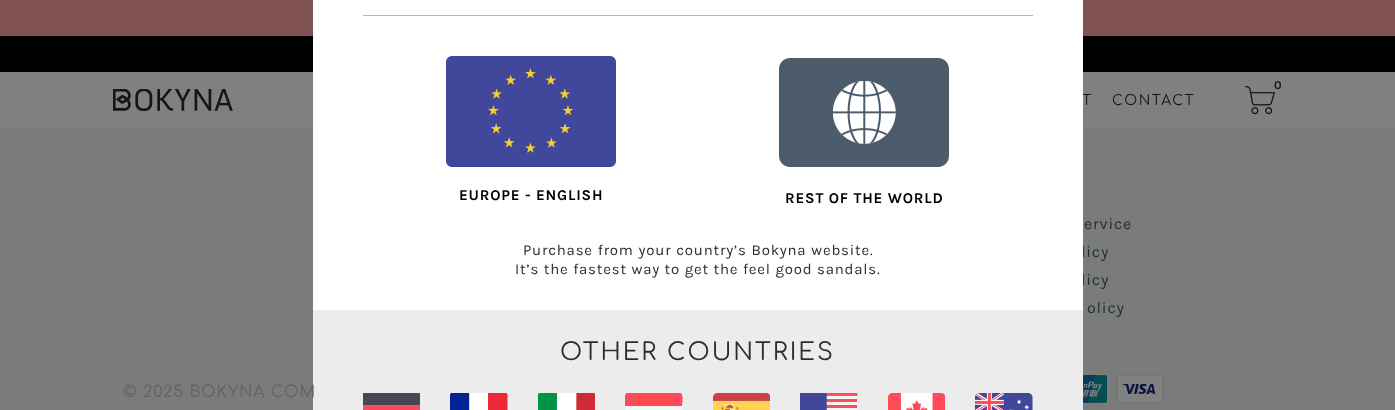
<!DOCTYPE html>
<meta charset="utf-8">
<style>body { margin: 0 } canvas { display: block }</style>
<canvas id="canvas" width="1395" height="410"></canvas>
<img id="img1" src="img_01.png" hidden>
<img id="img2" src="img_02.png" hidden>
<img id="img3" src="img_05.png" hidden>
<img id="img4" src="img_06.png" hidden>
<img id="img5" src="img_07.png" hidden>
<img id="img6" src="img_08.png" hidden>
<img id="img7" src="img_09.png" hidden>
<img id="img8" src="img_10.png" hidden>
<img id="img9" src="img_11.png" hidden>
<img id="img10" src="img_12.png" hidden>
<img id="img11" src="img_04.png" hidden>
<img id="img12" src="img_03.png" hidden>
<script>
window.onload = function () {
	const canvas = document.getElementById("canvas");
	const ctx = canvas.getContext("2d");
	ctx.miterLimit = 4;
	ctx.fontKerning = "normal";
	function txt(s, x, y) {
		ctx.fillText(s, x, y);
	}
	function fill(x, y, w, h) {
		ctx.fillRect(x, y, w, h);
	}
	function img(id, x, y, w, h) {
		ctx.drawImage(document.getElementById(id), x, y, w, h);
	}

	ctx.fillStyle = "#7B7B7B";
	fill(0, 0, 1395, 410);
	ctx.fillStyle = "#805254";
	fill(0, 0, 1395, 36);
	ctx.fillStyle = "#000000";
	fill(0, 36, 1395, 36);
	ctx.fillStyle = "#808080";
	fill(0, 72, 1395, 56);
	ctx.fillStyle = "#777777";
	fill(0, 128, 1395, 1);
	img("img1", 113, 89, 120, 22);
	img("img2", 1245, 85, 30, 30);
	ctx.fillStyle = "#ECECEC";
	fill(313, 310, 770, 100);
	ctx.fillStyle = "#464655";
	ctx.beginPath();
	ctx.moveTo(420, 406);
	ctx.lineTo(363, 406);
	ctx.lineTo(363, 394);
	ctx.bezierCurveTo(363, 393, 363, 393, 364, 393);
	ctx.lineTo(419, 393);
	ctx.bezierCurveTo(420, 393, 420, 393, 420, 394);
	ctx.closePath();
	ctx.fill();
	ctx.fillStyle = "#FF4B55";
	fill(363, 405, 57, 5);
	img("img3", 450, 393, 58, 17);
	img("img4", 538, 393, 57, 17);
	ctx.save();
	ctx.beginPath();
	ctx.rect(625, 393, 58, 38);
	ctx.clip();
	ctx.beginPath();
	ctx.moveTo(680, 393);
	ctx.lineTo(645, 393);
	ctx.bezierCurveTo(623, 393, 625, 388, 625, 406);
	ctx.lineTo(682, 406);
	ctx.bezierCurveTo(682, 403, 684, 393, 680, 393);
	ctx.closePath();
	ctx.fill();
	ctx.restore();
	ctx.fillStyle = "#F5F5F5";
	fill(625, 406, 57, 4);
	img("img5", 713, 393, 57, 17);
	img("img6", 800, 393, 58, 17);
	img("img7", 888, 393, 57, 17);
	img("img8", 975, 393, 58, 17);
	img("img9", 1083, 375, 24, 28);
	img("img10", 1116, 374, 48, 30);
	ctx.letterSpacing = "1px";
	ctx.font = "bold 12px Karla";
	ctx.fillStyle = "#161616";
	txt("0", 1274, 89);
	ctx.letterSpacing = "1.5px";
	ctx.font = "14px Comfortaa";
	txt("T", 1082, 105);
	txt("CONTACT", 1112, 105);
	ctx.letterSpacing = "2px";
	ctx.font = "24px Comfortaa";
	ctx.fillStyle = "#2C2C2C";
	txt("OTHER COUNTRIES", 560, 360);
	ctx.letterSpacing = "0.8px";
	ctx.font = "16px Karla";
	ctx.fillStyle = "#193035";
	txt("ervice", 1084, 229);
	txt("licy", 1081, 257);
	txt("licy", 1081, 285);
	ctx.fillStyle = "#FFFFFF";
	fill(313, 0, 770, 310);
	ctx.font = "bold 15px Karla";
	ctx.fillStyle = "#000000";
	txt("REST OF THE WORLD", 785, 203);
	img("img11", 779, 58, 170, 109);
	txt("EUROPE - ENGLISH", 459, 200);
	img("img12", 446, 56, 170, 111);
	ctx.wordSpacing = "0.25px";
	ctx.font = "15px Karla";
	ctx.fillStyle = "#2C2C2C";
	txt("It’s the fastest way to get the feel good sandals.", 515, 274);
	ctx.wordSpacing = "0.5px";
	txt("Purchase from your country’s Bokyna website.", 523, 255);
	ctx.fillStyle = "#B5B5B5";
	fill(363, 15, 670, 1);
	ctx.wordSpacing = "0px";
	ctx.font = "16px Karla";
	ctx.fillStyle = "#193035";
	txt("olicy", 1087, 313);
	ctx.font = "16px Comfortaa";
	ctx.fillStyle = "#626262";
	txt("© 2025 BOKYNA COM", 123, 397);
};
</script>
